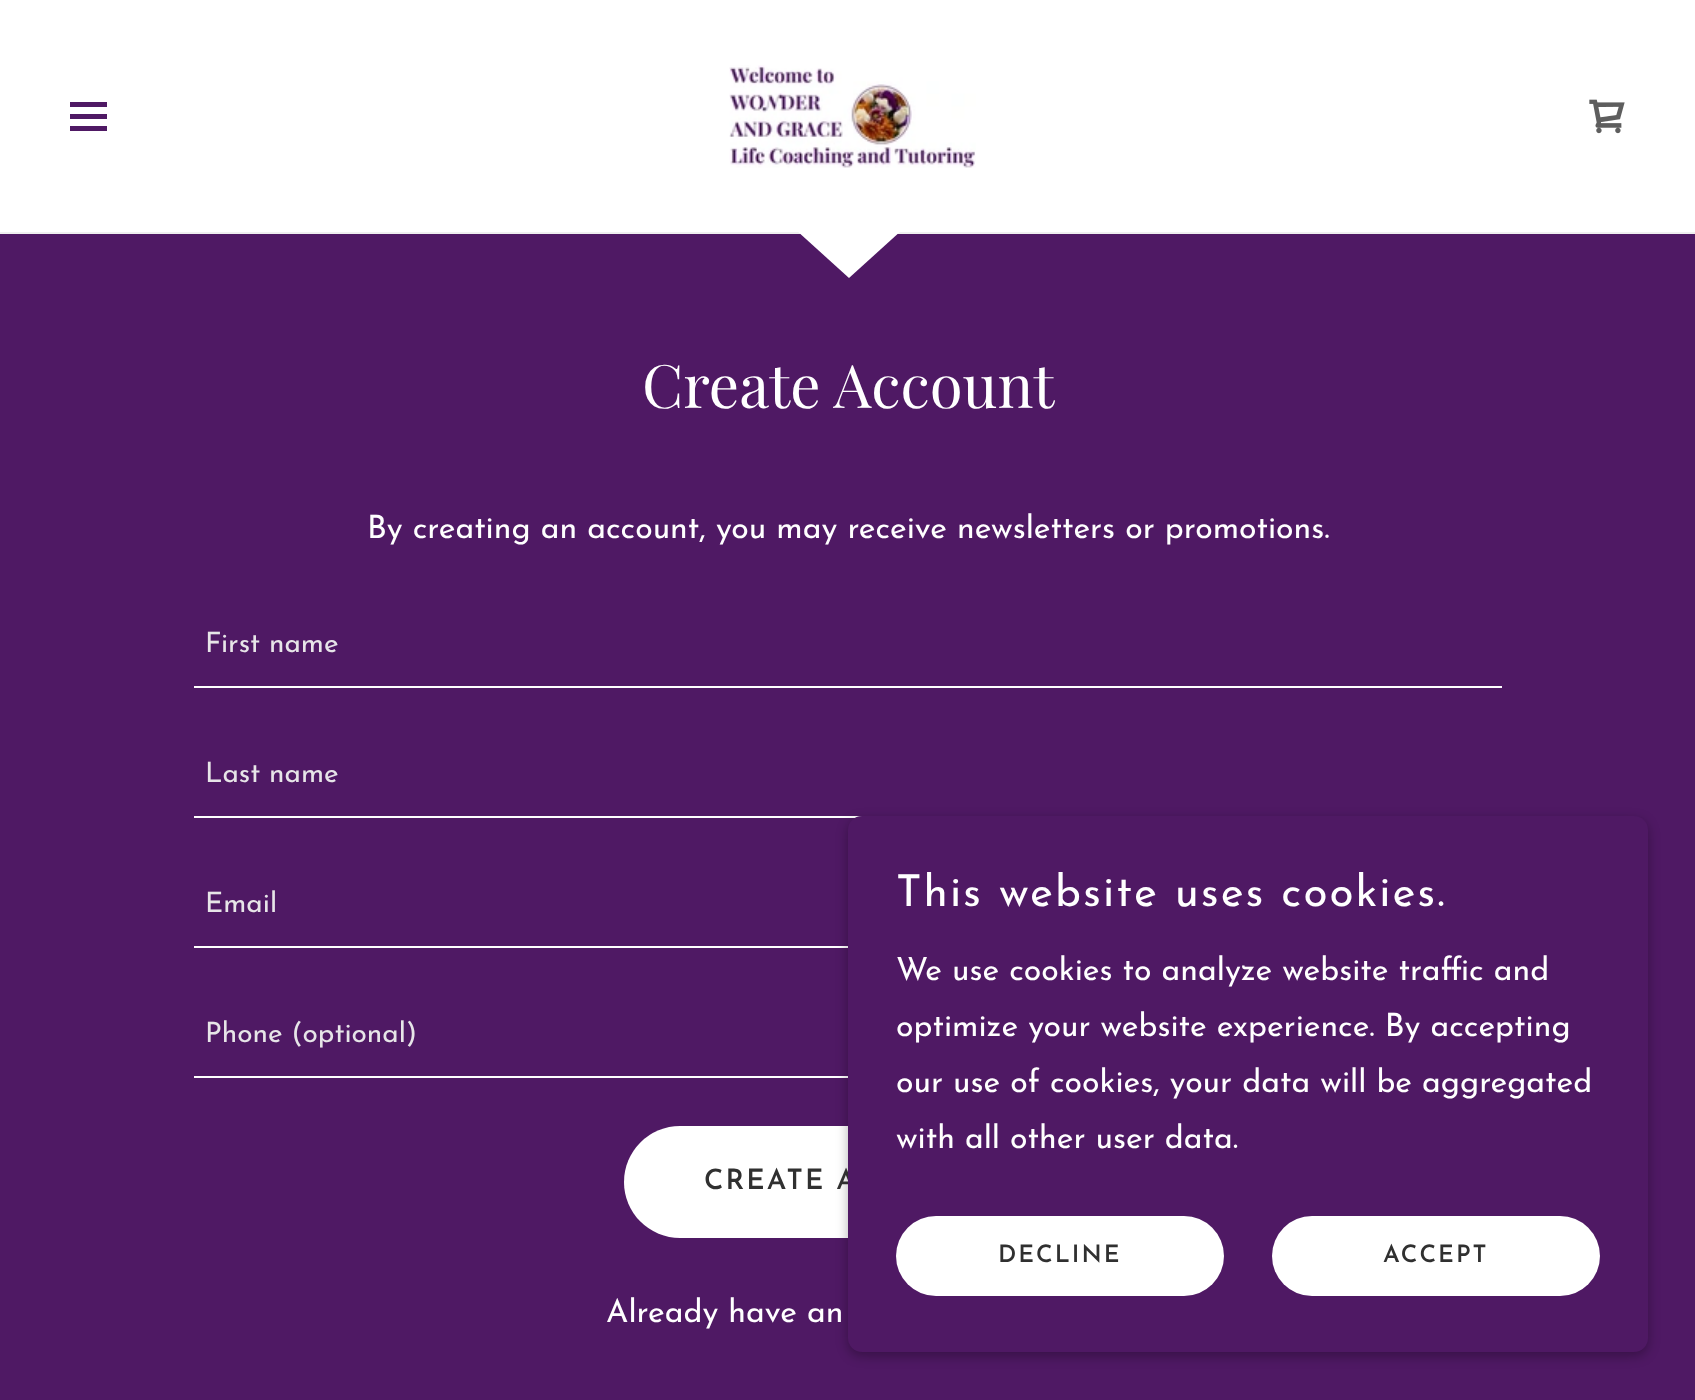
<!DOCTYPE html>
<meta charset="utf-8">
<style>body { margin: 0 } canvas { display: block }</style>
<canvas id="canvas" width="1695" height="1400"></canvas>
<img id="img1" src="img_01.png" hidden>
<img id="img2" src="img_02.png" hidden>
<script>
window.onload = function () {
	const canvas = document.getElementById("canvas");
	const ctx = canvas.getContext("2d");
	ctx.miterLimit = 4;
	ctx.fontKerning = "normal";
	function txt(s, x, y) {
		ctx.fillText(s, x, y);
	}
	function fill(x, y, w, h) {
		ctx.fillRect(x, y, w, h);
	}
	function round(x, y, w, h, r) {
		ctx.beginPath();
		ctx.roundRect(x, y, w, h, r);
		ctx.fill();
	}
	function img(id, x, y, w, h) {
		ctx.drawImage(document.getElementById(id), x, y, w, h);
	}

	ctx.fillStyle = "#4F1964";
	fill(0, 0, 1695, 1400);
	ctx.fillStyle = "#FFFFFF";
	fill(0, 0, 1695, 232);
	ctx.fillStyle = "#EFEFEF";
	fill(0, 232, 1695, 2);
	ctx.fillStyle = "#4F1964";
	fill(70, 102, 37, 5);
	fill(70, 114, 37, 5);
	fill(70, 126, 37, 5);
	img("img1", 729, 65, 247, 103);
	img("img2", 1589, 99, 36, 35);
	ctx.fillStyle = "#FFFFFF";
	ctx.beginPath();
	ctx.moveTo(849, 278);
	ctx.lineTo(902, 230);
	ctx.lineTo(796, 230);
	ctx.closePath();
	ctx.fill("evenodd");
	fill(194, 686, 1308, 2);
	fill(194, 816, 668, 2);
	fill(194, 946, 654, 2);
	fill(194, 1076, 654, 2);
	round(624, 1126, 448, 112, 56);
	ctx.fillStyle = "rgba(0, 0, 0, 0.3)";
	ctx.filter = "blur(6px)";
	ctx.beginPath();
	ctx.roundRect(848, 820, 800, 536, 14);
	ctx.fill();
	ctx.filter = "none";
	ctx.font = "60px Playfair Display";
	ctx.fillStyle = "#FFFFFF";
	txt("Create Account", 642, 408);
	ctx.font = "32px Josefin Sans";
	txt("By creating an account, you may receive newsletters or promotions.", 367, 538);
	ctx.font = "28px Josefin Sans";
	ctx.fillStyle = "#E7E5E8";
	txt("First name", 205, 652);
	txt("Last name", 205, 782);
	txt("Email", 205, 912);
	txt("Phone (optional)", 205, 1042);
	ctx.letterSpacing = "2px";
	ctx.font = "600 28px Josefin Sans";
	ctx.fillStyle = "#303030";
	txt("CREATE A", 704, 1189);
	ctx.letterSpacing = "0px";
	ctx.font = "32px Josefin Sans";
	ctx.fillStyle = "#FFFFFF";
	txt("Already have an", 606, 1322);
	ctx.fillStyle = "#4F1964";
	round(848, 816, 800, 536, 14);
	ctx.letterSpacing = "2px";
	ctx.font = "44px Josefin Sans";
	ctx.fillStyle = "#FFFFFF";
	txt("This website uses cookies.", 896, 906);
	ctx.letterSpacing = "0px";
	ctx.font = "32px Josefin Sans";
	txt("We use cookies to analyze website traffic and", 896, 980);
	txt("optimize your website experience. By accepting", 896, 1036);
	txt("our use of cookies, your data will be aggregated", 896, 1092);
	txt("with all other user data.", 896, 1148);
	round(896, 1216, 328, 80, 40);
	ctx.letterSpacing = "2px";
	ctx.font = "600 24px Josefin Sans";
	ctx.fillStyle = "#303030";
	txt("DECLINE", 998, 1262);
	ctx.fillStyle = "#FFFFFF";
	round(1272, 1216, 328, 80, 40);
	ctx.fillStyle = "#303030";
	txt("ACCEPT", 1383, 1262);
};
</script>
